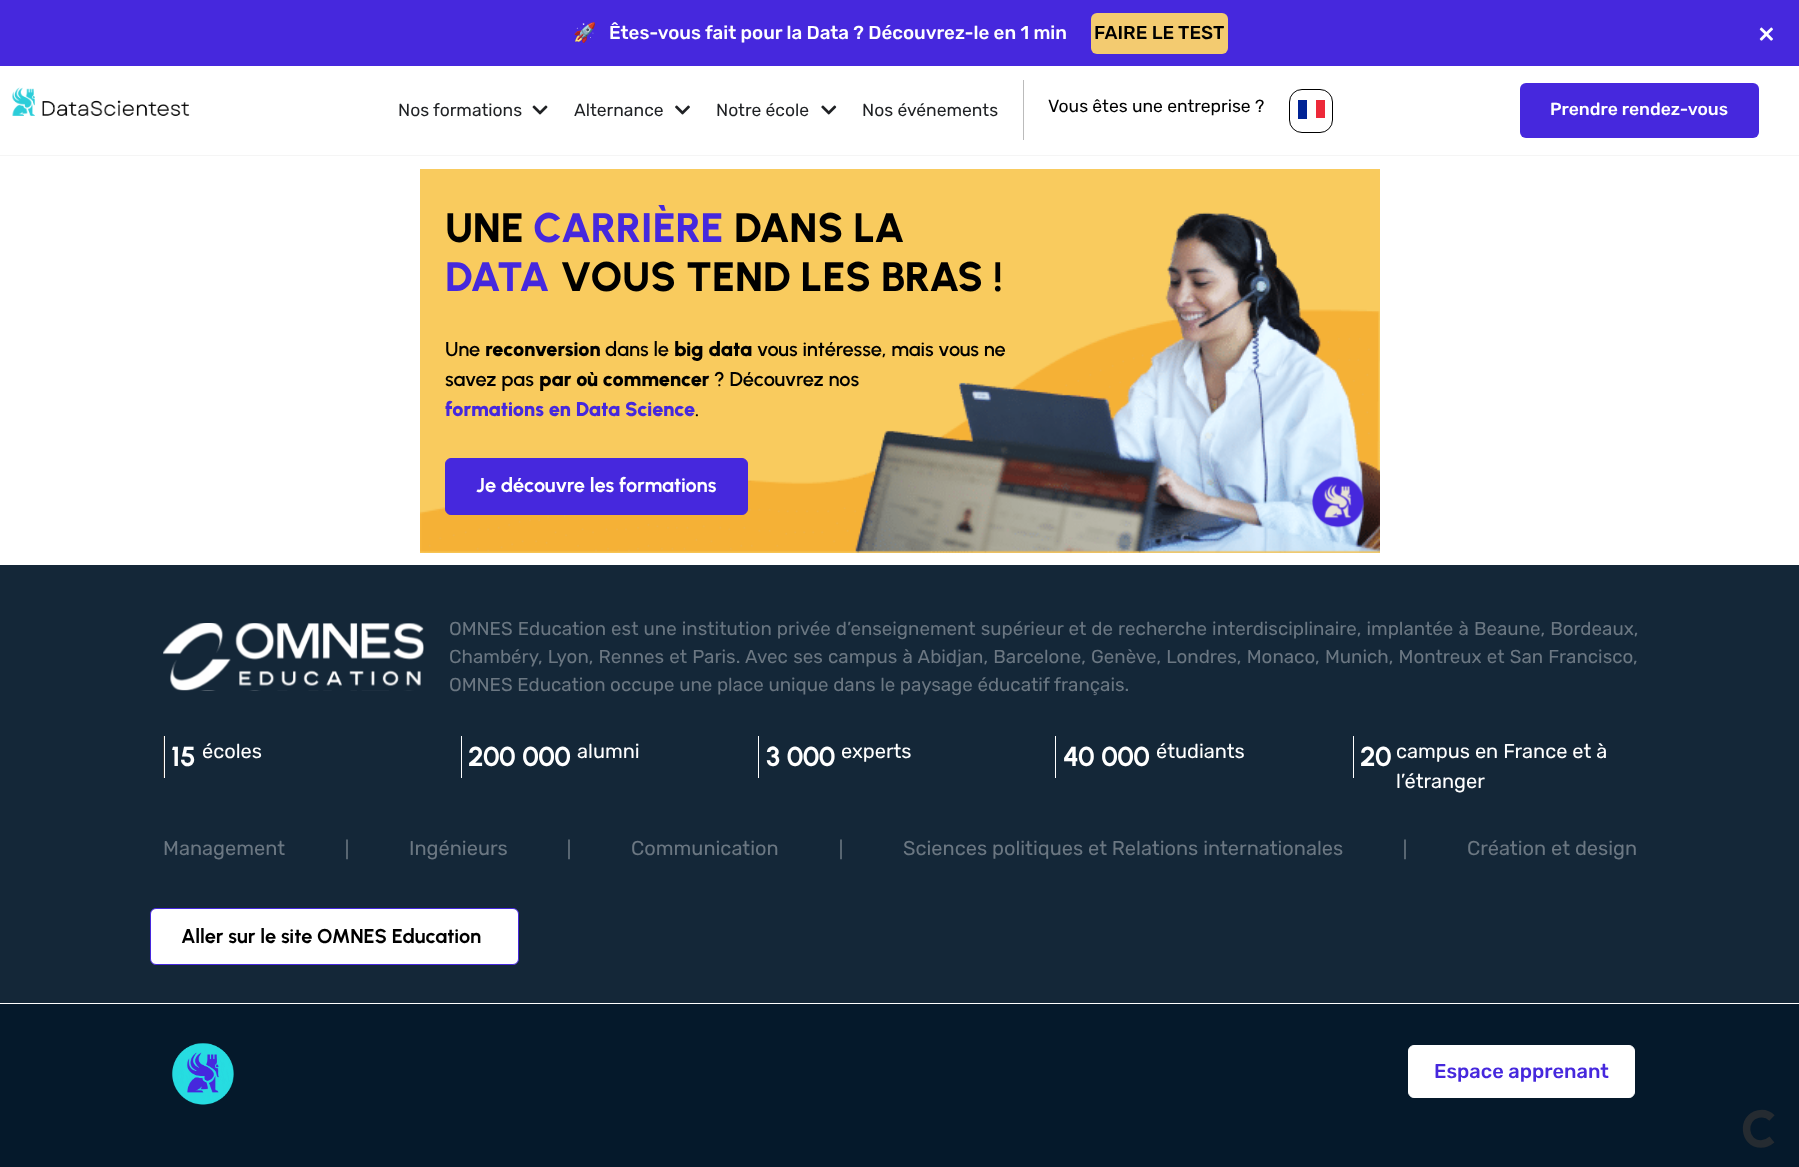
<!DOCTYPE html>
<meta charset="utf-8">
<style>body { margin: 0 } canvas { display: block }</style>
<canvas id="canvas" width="1799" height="1167"></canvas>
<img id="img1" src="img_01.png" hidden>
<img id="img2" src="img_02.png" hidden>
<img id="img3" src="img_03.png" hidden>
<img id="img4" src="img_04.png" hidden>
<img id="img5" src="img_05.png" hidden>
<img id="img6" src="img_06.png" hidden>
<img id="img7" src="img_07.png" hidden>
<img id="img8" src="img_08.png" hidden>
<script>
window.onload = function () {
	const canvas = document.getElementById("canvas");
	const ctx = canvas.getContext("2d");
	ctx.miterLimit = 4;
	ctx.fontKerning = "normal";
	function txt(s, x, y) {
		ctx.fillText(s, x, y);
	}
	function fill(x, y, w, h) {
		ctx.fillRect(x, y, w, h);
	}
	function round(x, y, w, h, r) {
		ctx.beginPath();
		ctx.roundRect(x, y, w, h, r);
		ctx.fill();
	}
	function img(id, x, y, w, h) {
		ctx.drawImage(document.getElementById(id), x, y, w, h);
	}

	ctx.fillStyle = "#FFFFFF";
	fill(0, 0, 1799, 1167);
	ctx.fillStyle = "#F5F5F5";
	fill(0, 155, 1799, 1);
	ctx.fillStyle = "#4628DD";
	fill(0, 0, 1799, 66);
	ctx.fillStyle = "#F3CB70";
	round(1091, 13, 137, 41, 6);
	img("img1", 12, 87, 178, 29);
	img("img2", 532, 105, 16, 10);
	img("img3", 675, 105, 15, 10);
	img("img4", 821, 105, 16, 10);
	ctx.fillStyle = "#BBBBBB";
	fill(1023, 80, 1, 60);
	ctx.beginPath();
	ctx.roundRect(1289.5, 89.5, 43, 43, 12.5);
	ctx.strokeStyle = "#000000";
	ctx.stroke();
	ctx.fillStyle = "#002395";
	fill(1298, 100, 9, 19);
	ctx.fillStyle = "#ED2939";
	fill(1316, 100, 9, 18);
	ctx.fillStyle = "#4628DD";
	round(1520, 83, 239, 55, 6);
	ctx.fillStyle = "#F9CB5E";
	fill(420, 169, 960, 384);
	img("img5", 420, 212, 960, 341);
	ctx.fillStyle = "#4628DD";
	ctx.beginPath();
	ctx.roundRect(445.5, 458.5, 302, 56, 5.5);
	ctx.fill();
	ctx.strokeStyle = "#4628DD";
	ctx.stroke();
	img("img6", 1312, 476, 53, 52);
	ctx.fillStyle = "#142738";
	fill(0, 565, 1799, 438);
	img("img7", 163, 623, 261, 68);
	ctx.fillStyle = "#333333";
	fill(163, 736, 1, 42);
	ctx.fillStyle = "#FFFFFF";
	fill(164, 736, 1, 42);
	fill(461, 736, 1, 42);
	fill(758, 736, 1, 42);
	fill(1055, 736, 1, 42);
	fill(1353, 736, 1, 42);
	ctx.beginPath();
	ctx.roundRect(150.5, 908.5, 368, 56, 5.5);
	ctx.fill();
	ctx.stroke();
	ctx.fillStyle = "#05192B";
	fill(0, 1004, 1799, 163);
	img("img8", 171, 1043, 63, 62);
	ctx.fillStyle = "#FFFFFF";
	ctx.beginPath();
	ctx.roundRect(1408.5, 1045.5, 226, 52, 5.5);
	ctx.fill();
	ctx.strokeStyle = "#FFFFFF";
	ctx.stroke();
	ctx.beginPath();
	ctx.moveTo(1772, 1139.5);
	ctx.bezierCurveTo(1769, 1142, 1765, 1144, 1761, 1144);
	ctx.bezierCurveTo(1743.5, 1144, 1741, 1117.5, 1758.5, 1114);
	ctx.bezierCurveTo(1763, 1113, 1768.5, 1114.5, 1772, 1118);
	ctx.strokeStyle = "#252B31";
	ctx.lineWidth = 7.5;
	ctx.stroke();
	ctx.font = "18.75px Noto Color Emoji";
	txt("🚀", 573, 39);
	ctx.font = "500 18.75px Rubik";
	txt("Êtes-vous fait pour la Data ? Découvrez-le en 1 min", 609, 39);
	ctx.fillStyle = "#000000";
	txt("FAIRE LE TEST", 1094, 39);
	ctx.font = "30px Rubik";
	ctx.fillStyle = "#FFFFFF";
	txt("×", 1758, 43);
	ctx.font = "17.5px Rubik";
	ctx.fillStyle = "#1F2124";
	txt("Nos formations", 398, 116);
	txt("Alternance", 574, 116);
	txt("Notre école", 716, 116);
	txt("Nos événements", 862, 116);
	ctx.fillStyle = "#000000";
	txt("Vous êtes une entreprise ?", 1048, 112);
	ctx.font = "500 17.5px Rubik";
	ctx.fillStyle = "#FFFFFF";
	txt("Prendre rendez-vous", 1550, 115);
	ctx.font = "800 41.25px Urbanist";
	ctx.fillStyle = "#000000";
	txt("UNE", 445, 242);
	ctx.fillStyle = "#4628DD";
	txt("CARRIÈRE", 533, 242);
	ctx.fillStyle = "#000000";
	txt("DANS LA", 734, 242);
	ctx.fillStyle = "#4628DD";
	txt("DATA", 445, 291);
	ctx.fillStyle = "#000000";
	txt("VOUS TEND LES BRAS !", 560, 291);
	ctx.font = "600 20px Urbanist";
	txt("Une", 445, 356);
	ctx.font = "900 20px Urbanist";
	txt("reconversion", 485, 356);
	ctx.font = "600 20px Urbanist";
	txt("dans le", 605, 356);
	ctx.font = "900 20px Urbanist";
	txt("big data", 674, 356);
	ctx.font = "600 20px Urbanist";
	txt("vous intéresse, mais vous ne", 757, 356);
	txt("savez pas", 445, 386);
	ctx.font = "900 20px Urbanist";
	txt("par où commencer", 539, 386);
	ctx.font = "600 20px Urbanist";
	txt("? Découvrez nos", 714, 386);
	ctx.font = "900 20px Urbanist";
	ctx.fillStyle = "#4628DD";
	txt("formations en Data Science", 445, 416);
	ctx.font = "600 20px Urbanist";
	ctx.fillStyle = "#000000";
	txt(".", 695, 416);
	ctx.font = "bold 20px Urbanist";
	ctx.fillStyle = "#FFFFFF";
	txt("Je découvre les formations", 476, 492);
	ctx.wordSpacing = "0.5px";
	ctx.font = "18.75px Rubik";
	ctx.fillStyle = "#6B7782";
	txt("OMNES Education est une institution privée d’enseignement supérieur et de recherche interdisciplinaire, implantée à Beaune, Bordeaux,", 449, 635);
	ctx.wordSpacing = "0.6px";
	txt("Chambéry, Lyon, Rennes et Paris. Avec ses campus à Abidjan, Barcelone, Genève, Londres, Monaco, Munich, Montreux et San Francisco,", 449, 663);
	ctx.wordSpacing = "0px";
	txt("OMNES Education occupe une place unique dans le paysage éducatif français.", 449, 691);
	ctx.font = "bold 27.5px Urbanist";
	ctx.fillStyle = "#FFFFFF";
	txt("15", 171, 766);
	ctx.font = "20px Rubik";
	txt("écoles", 202, 758);
	ctx.font = "bold 27.5px Urbanist";
	txt("200 000", 468, 766);
	ctx.font = "20px Rubik";
	txt("alumni", 577, 758);
	ctx.font = "bold 27.5px Urbanist";
	txt("3 000", 766, 766);
	ctx.font = "20px Rubik";
	txt("experts", 841, 758);
	ctx.font = "bold 27.5px Urbanist";
	txt("40 000", 1063, 766);
	ctx.font = "20px Rubik";
	txt("étudiants", 1156, 758);
	ctx.font = "bold 27.5px Urbanist";
	txt("20", 1360, 766);
	ctx.font = "20px Rubik";
	txt("campus en France et à", 1396, 758);
	txt("l’étranger", 1396, 788);
	ctx.fillStyle = "#6B7782";
	txt("Management", 163, 855);
	ctx.font = "20px DejaVu Sans";
	txt("∣", 342, 855);
	ctx.font = "20px Rubik";
	txt("Ingénieurs", 409, 855);
	ctx.font = "20px DejaVu Sans";
	txt("∣", 564, 855);
	ctx.font = "20px Rubik";
	txt("Communication", 631, 855);
	ctx.font = "20px DejaVu Sans";
	txt("∣", 836, 855);
	ctx.font = "20px Rubik";
	txt("Sciences politiques et Relations internationales", 903, 855);
	ctx.font = "20px DejaVu Sans";
	txt("∣", 1400, 855);
	ctx.font = "20px Rubik";
	txt("Création et design", 1467, 855);
	ctx.font = "bold 20px Urbanist";
	ctx.fillStyle = "#000000";
	txt("Aller sur le site OMNES Education", 181, 943);
	ctx.font = "500 20px Rubik";
	ctx.fillStyle = "#4628DD";
	txt("Espace apprenant", 1434, 1078);
};
</script>
